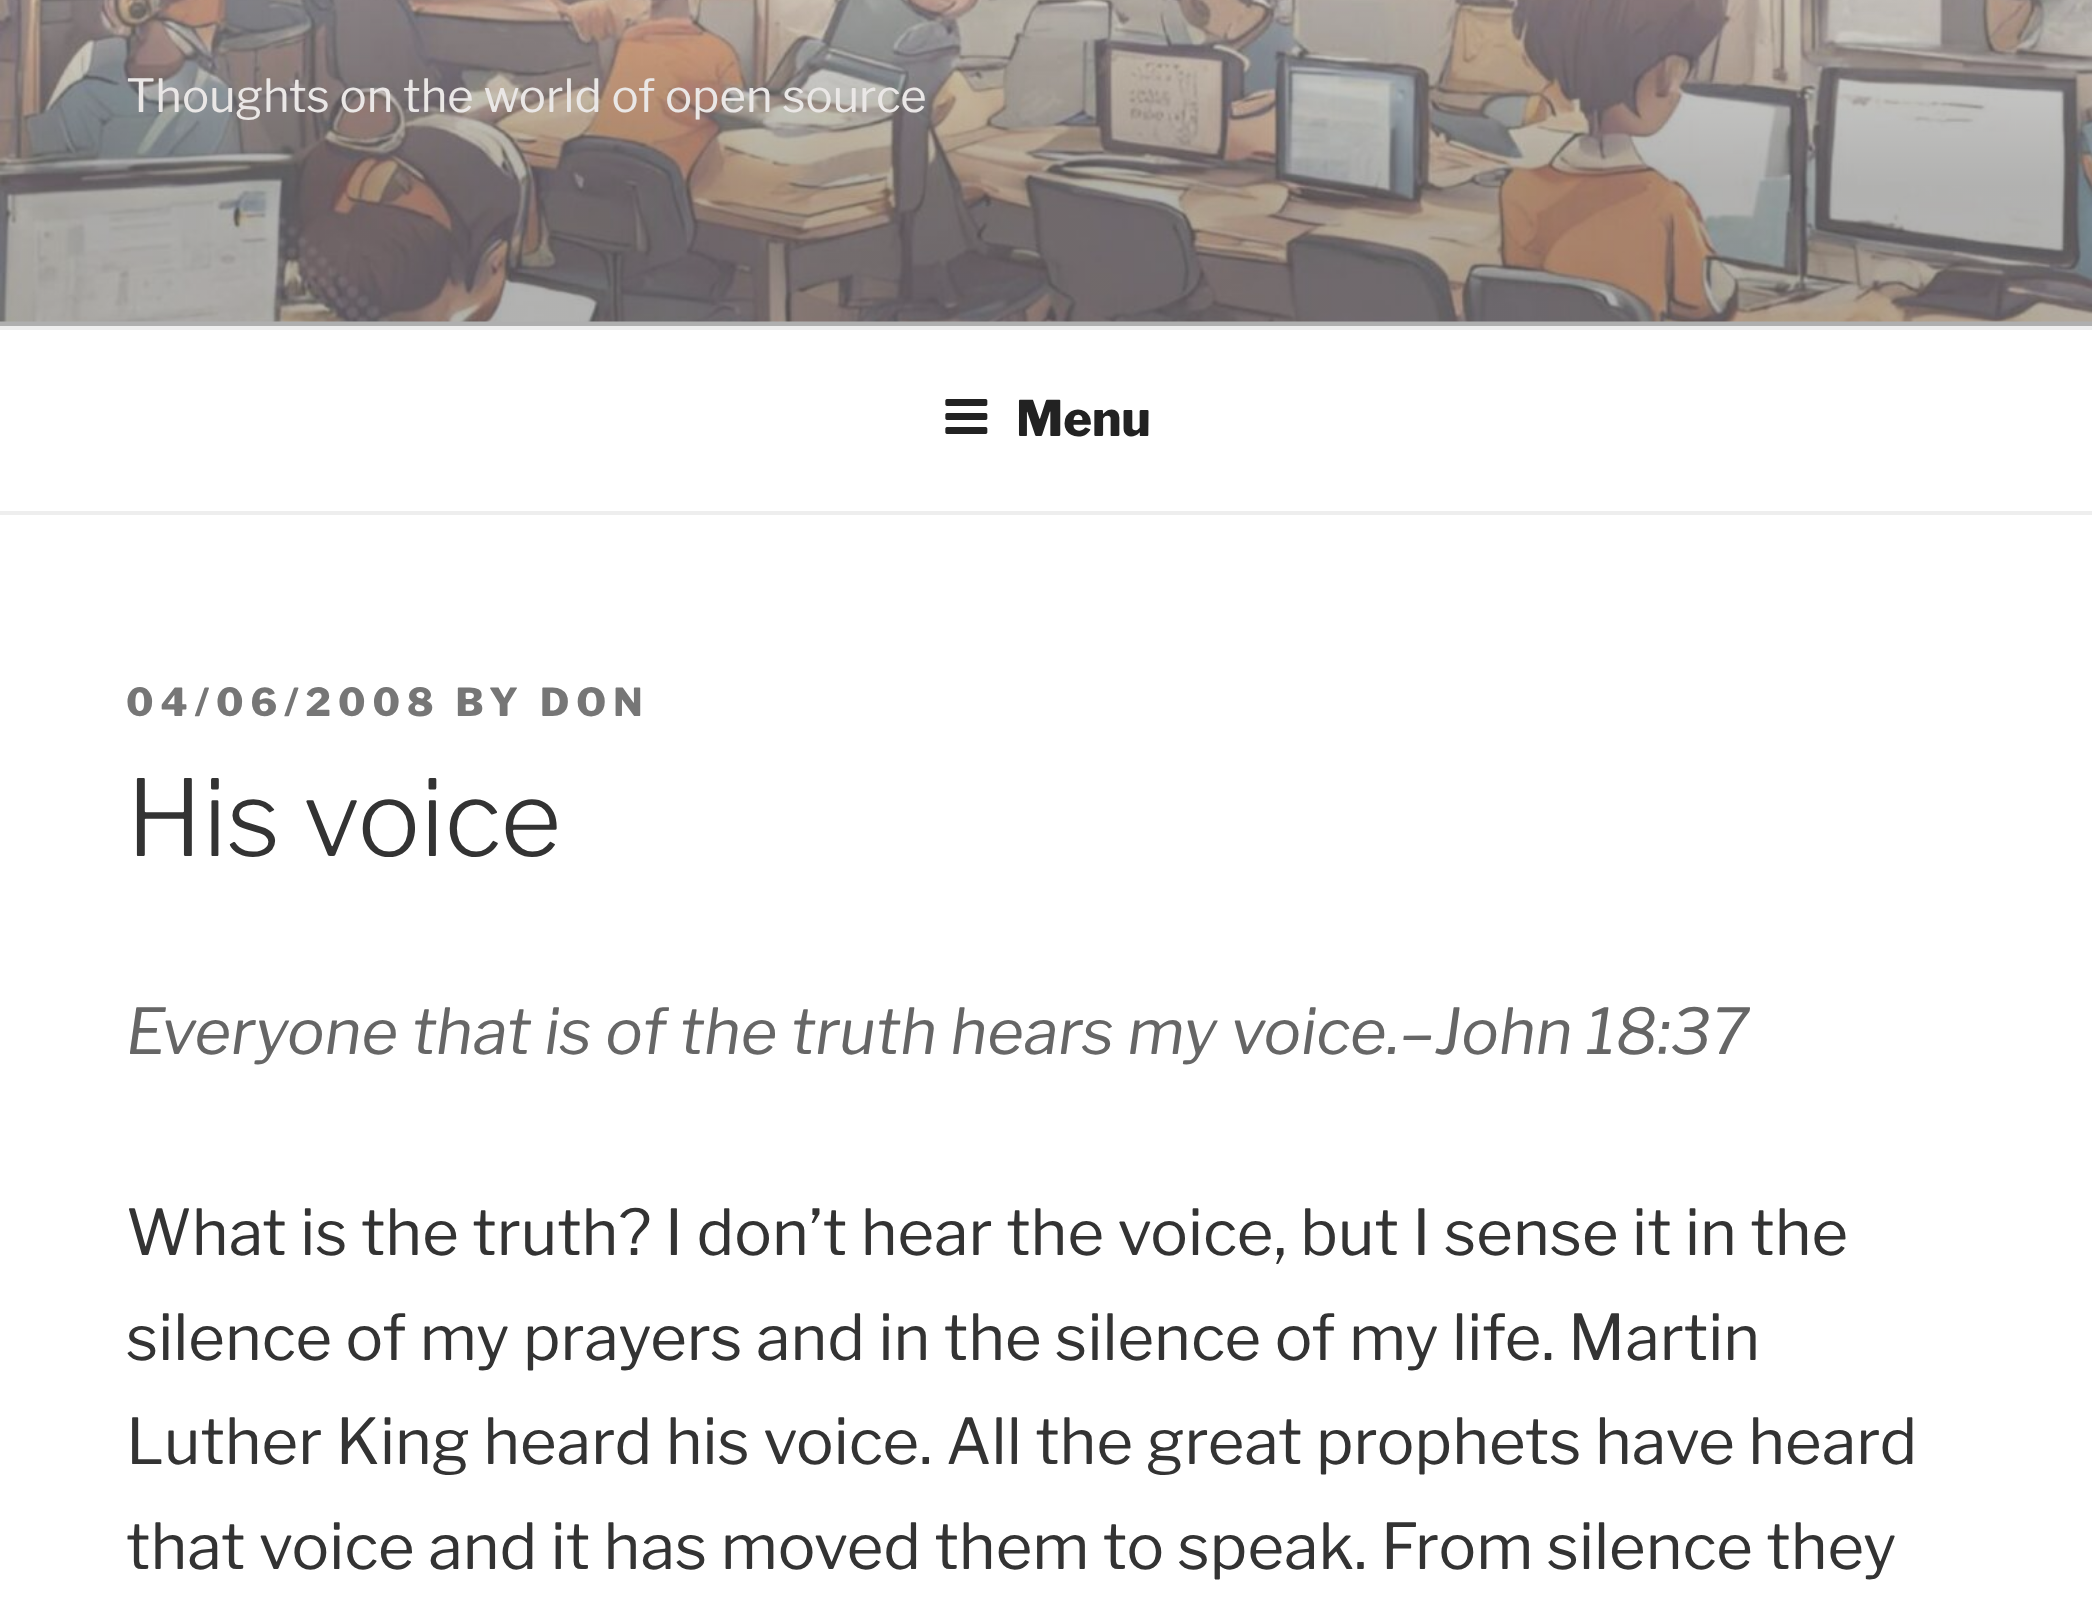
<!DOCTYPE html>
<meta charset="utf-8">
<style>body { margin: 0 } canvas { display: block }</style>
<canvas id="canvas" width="2092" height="1619"></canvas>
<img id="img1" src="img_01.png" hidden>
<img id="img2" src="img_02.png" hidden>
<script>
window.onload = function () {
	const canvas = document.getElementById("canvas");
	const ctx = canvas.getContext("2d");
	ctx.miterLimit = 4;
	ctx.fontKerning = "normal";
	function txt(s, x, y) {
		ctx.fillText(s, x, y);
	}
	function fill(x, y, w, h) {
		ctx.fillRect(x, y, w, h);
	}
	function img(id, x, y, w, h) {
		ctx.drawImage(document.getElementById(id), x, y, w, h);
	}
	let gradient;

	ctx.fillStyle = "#FFFFFF";
	fill(0, 0, 2092, 1619);
	ctx.fillStyle = "#FAFAFA";
	fill(0, 321, 2092, 5);
	img("img1", 0, 0, 2092, 322);
	gradient = ctx.createLinearGradient(1047, -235, 1047, 326);
	gradient.addColorStop(0, "rgba(0, 0, 0, 0)");
	gradient.addColorStop(0.75, "rgba(0, 0, 0, 0.3)");
	gradient.addColorStop(1, "rgba(0, 0, 0, 0.3)");
	ctx.fillStyle = gradient;
	fill(0, 0, 2092, 326);
	ctx.fillStyle = "#EEEEEE";
	fill(0, 326, 2092, 4);
	fill(0, 511, 2092, 4);
	img("img2", 945, 399, 43, 35);
	ctx.font = "100 45.5px 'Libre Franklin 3'";
	ctx.fillStyle = "#EAE7E6";
	txt("Thoughts on the world of open source", 126, 112);
	ctx.font = "100 49px Libre Franklin";
	ctx.fillStyle = "#222222";
	txt("Menu", 1016, 436);
	ctx.letterSpacing = "7px";
	ctx.font = "100 38.5px Libre Franklin";
	ctx.fillStyle = "#767676";
	txt("04/06/2008 BY DON", 126, 716);
	ctx.letterSpacing = "0px";
	ctx.font = "100 105px 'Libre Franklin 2'";
	ctx.fillStyle = "#333333";
	txt("His voice", 126, 856);
	ctx.font = "italic 100 63px Libre Franklin";
	ctx.fillStyle = "#666666";
	txt("Everyone that is of the truth hears my voice.–John 18:37", 126, 1054);
	ctx.font = "100 63px 'Libre Franklin 3'";
	ctx.fillStyle = "#333333";
	txt("What is the truth? I don’t hear the voice, but I sense it in the", 126, 1255);
	txt("silence of my prayers and in the silence of my life. Martin", 126, 1360);
	txt("Luther King heard his voice. All the great prophets have heard", 126, 1464);
	txt("that voice and it has moved them to speak. From silence they", 126, 1569);
};
</script>
